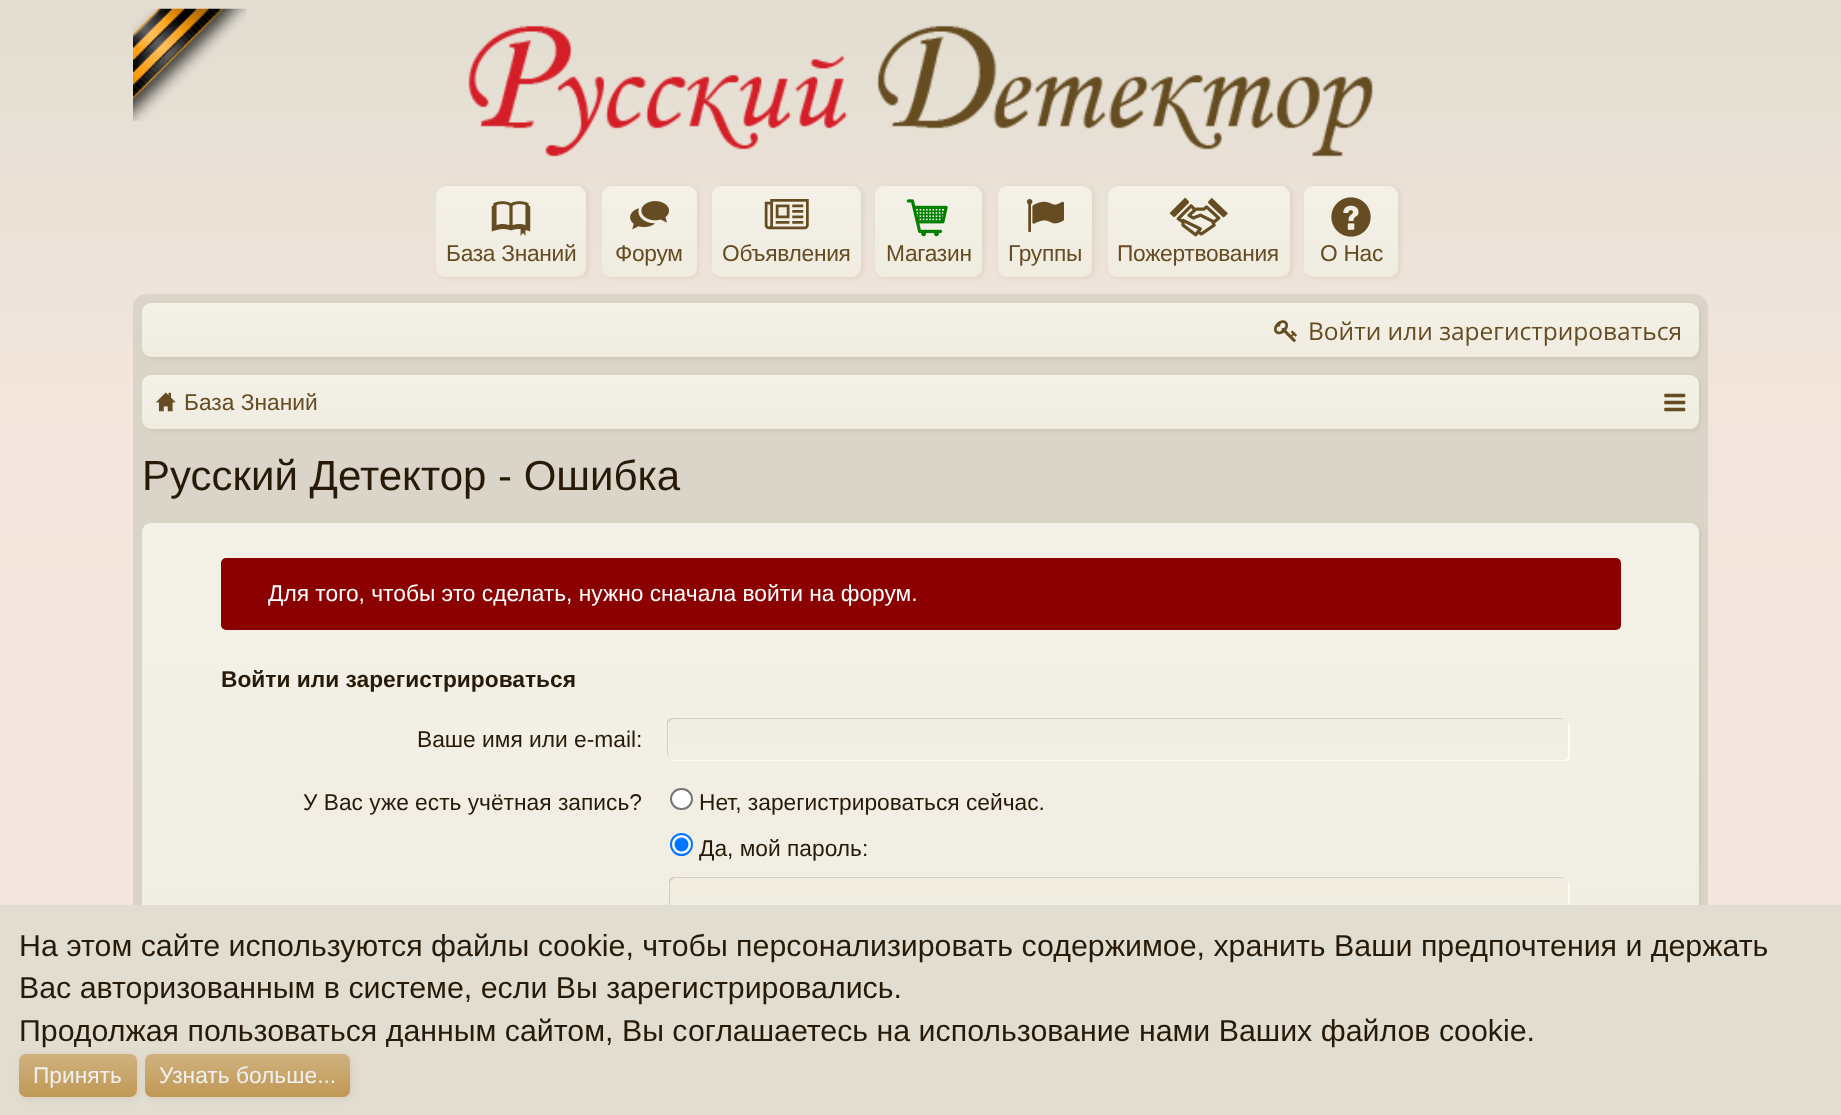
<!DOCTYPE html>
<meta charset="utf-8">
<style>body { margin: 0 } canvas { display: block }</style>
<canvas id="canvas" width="1841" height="1115"></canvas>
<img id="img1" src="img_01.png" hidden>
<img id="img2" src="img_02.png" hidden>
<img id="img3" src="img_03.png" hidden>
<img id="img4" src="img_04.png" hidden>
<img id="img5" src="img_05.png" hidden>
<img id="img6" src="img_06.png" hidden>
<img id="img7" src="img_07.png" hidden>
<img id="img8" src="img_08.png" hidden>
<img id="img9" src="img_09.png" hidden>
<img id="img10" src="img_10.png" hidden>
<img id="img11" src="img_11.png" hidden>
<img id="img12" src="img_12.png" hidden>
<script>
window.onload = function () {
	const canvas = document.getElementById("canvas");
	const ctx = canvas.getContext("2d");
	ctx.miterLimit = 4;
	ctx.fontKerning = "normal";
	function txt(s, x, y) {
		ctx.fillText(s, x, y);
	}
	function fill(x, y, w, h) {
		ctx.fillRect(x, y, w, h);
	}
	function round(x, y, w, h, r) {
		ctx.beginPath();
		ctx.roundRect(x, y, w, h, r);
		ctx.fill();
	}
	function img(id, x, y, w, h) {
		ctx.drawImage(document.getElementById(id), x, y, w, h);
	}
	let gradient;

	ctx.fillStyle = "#FFFFFF";
	fill(0, 0, 1841, 1115);
	gradient = ctx.createLinearGradient(921, 0, 921, 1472);
	gradient.addColorStop(0, "#E2DDD1");
	gradient.addColorStop(0.24, "#F1E5DC");
	gradient.addColorStop(1, "#F7E8E0");
	ctx.fillStyle = gradient;
	fill(0, 0, 1841, 905);
	img("img1", 133, 8, 114, 113);
	img("img2", 468, 25, 905, 132);
	ctx.fillStyle = "rgba(101, 76, 34, 0.1)";
	ctx.filter = "blur(2.5px)";
	ctx.beginPath();
	ctx.roundRect(438, 187, 150, 91, 9);
	ctx.fill();
	ctx.filter = "none";
	ctx.fillStyle = "#F0ECE0";
	round(436, 186, 150, 91, 9);
	gradient = ctx.createLinearGradient(511, 186, 511, 277);
	gradient.addColorStop(0, "rgba(255, 255, 255, 0.25)");
	gradient.addColorStop(1, "rgba(255, 255, 255, 0)");
	ctx.fillStyle = gradient;
	round(436, 186, 150, 91, 9);
	img("img3", 491, 201, 40, 35);
	ctx.fillStyle = "rgba(101, 76, 34, 0.1)";
	ctx.filter = "blur(2.5px)";
	ctx.beginPath();
	ctx.roundRect(604, 187, 94, 91, 9);
	ctx.fill();
	ctx.filter = "none";
	ctx.fillStyle = "#F0ECE0";
	round(602, 186, 95, 91, 9);
	gradient = ctx.createLinearGradient(649, 186, 649, 277);
	gradient.addColorStop(0, "rgba(255, 255, 255, 0.25)");
	gradient.addColorStop(1, "rgba(255, 255, 255, 0)");
	ctx.fillStyle = gradient;
	round(602, 186, 95, 91, 9);
	img("img4", 630, 201, 39, 29);
	ctx.fillStyle = "rgba(101, 76, 34, 0.1)";
	ctx.filter = "blur(2.5px)";
	ctx.beginPath();
	ctx.roundRect(714, 187, 149, 91, 9);
	ctx.fill();
	ctx.filter = "none";
	ctx.fillStyle = "#F0ECE0";
	round(712, 186, 149, 91, 9);
	gradient = ctx.createLinearGradient(787, 186, 787, 277);
	gradient.addColorStop(0, "rgba(255, 255, 255, 0.25)");
	gradient.addColorStop(1, "rgba(255, 255, 255, 0)");
	ctx.fillStyle = gradient;
	round(712, 186, 149, 91, 9);
	img("img5", 764, 199, 45, 31);
	ctx.fillStyle = "rgba(101, 76, 34, 0.1)";
	ctx.filter = "blur(2.5px)";
	ctx.beginPath();
	ctx.roundRect(877, 187, 107, 91, 9);
	ctx.fill();
	ctx.filter = "none";
	ctx.fillStyle = "#F0ECE0";
	round(875, 186, 107, 91, 9);
	gradient = ctx.createLinearGradient(928, 186, 928, 277);
	gradient.addColorStop(0, "rgba(255, 255, 255, 0.25)");
	gradient.addColorStop(1, "rgba(255, 255, 255, 0)");
	ctx.fillStyle = gradient;
	round(875, 186, 107, 91, 9);
	img("img6", 906, 199, 42, 38);
	ctx.fillStyle = "rgba(101, 76, 34, 0.1)";
	ctx.filter = "blur(2.5px)";
	ctx.beginPath();
	ctx.roundRect(999, 187, 95, 91, 9);
	ctx.fill();
	ctx.filter = "none";
	ctx.fillStyle = "#F0ECE0";
	round(998, 186, 94, 91, 9);
	gradient = ctx.createLinearGradient(1045, 186, 1045, 277);
	gradient.addColorStop(0, "rgba(255, 255, 255, 0.25)");
	gradient.addColorStop(1, "rgba(255, 255, 255, 0)");
	ctx.fillStyle = gradient;
	round(998, 186, 94, 91, 9);
	img("img7", 1026, 199, 38, 33);
	ctx.fillStyle = "rgba(101, 76, 34, 0.1)";
	ctx.filter = "blur(2.5px)";
	ctx.beginPath();
	ctx.roundRect(1110, 187, 182, 91, 9);
	ctx.fill();
	ctx.filter = "none";
	ctx.fillStyle = "#F0ECE0";
	round(1108, 186, 182, 91, 9);
	gradient = ctx.createLinearGradient(1199, 186, 1199, 277);
	gradient.addColorStop(0, "rgba(255, 255, 255, 0.25)");
	gradient.addColorStop(1, "rgba(255, 255, 255, 0)");
	ctx.fillStyle = gradient;
	round(1108, 186, 182, 91, 9);
	img("img8", 1169, 197, 59, 40);
	ctx.fillStyle = "rgba(101, 76, 34, 0.1)";
	ctx.filter = "blur(2.5px)";
	ctx.beginPath();
	ctx.roundRect(1306, 187, 94, 91, 9);
	ctx.fill();
	ctx.filter = "none";
	ctx.fillStyle = "#F0ECE0";
	round(1304, 186, 94, 91, 9);
	gradient = ctx.createLinearGradient(1351, 186, 1351, 277);
	gradient.addColorStop(0, "rgba(255, 255, 255, 0.25)");
	gradient.addColorStop(1, "rgba(255, 255, 255, 0)");
	ctx.fillStyle = gradient;
	round(1304, 186, 94, 91, 9);
	img("img9", 1331, 197, 40, 40);
	ctx.fillStyle = "#DBD5C9";
	round(133, 294, 1575, 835, 14);
	ctx.fillStyle = "rgba(101, 76, 34, 0.1)";
	ctx.filter = "blur(2.5px)";
	ctx.beginPath();
	ctx.roundRect(144, 305, 1557, 54, 9);
	ctx.fill();
	ctx.filter = "none";
	ctx.fillStyle = "#F0ECE0";
	round(142, 303, 1557, 54, 9);
	gradient = ctx.createLinearGradient(921, 303, 921, 357);
	gradient.addColorStop(0, "rgba(255, 255, 255, 0.25)");
	gradient.addColorStop(1, "rgba(255, 255, 255, 0)");
	ctx.fillStyle = gradient;
	round(142, 303, 1557, 54, 9);
	img("img10", 1274, 320, 23, 22);
	ctx.fillStyle = "rgba(101, 76, 34, 0.1)";
	ctx.filter = "blur(2.5px)";
	ctx.beginPath();
	ctx.roundRect(144, 376, 1557, 55, 9);
	ctx.fill();
	ctx.filter = "none";
	ctx.fillStyle = "#F0ECE0";
	round(142, 375, 1557, 54, 9);
	gradient = ctx.createLinearGradient(921, 374, 921, 429);
	gradient.addColorStop(0, "rgba(255, 255, 255, 0.25)");
	gradient.addColorStop(1, "rgba(255, 255, 255, 0)");
	ctx.fillStyle = gradient;
	round(142, 375, 1557, 54, 9);
	img("img11", 156, 392, 20, 20);
	img("img12", 1664, 393, 22, 19);
	ctx.fillStyle = "rgba(101, 76, 34, 0.1)";
	ctx.filter = "blur(2.5px)";
	ctx.beginPath();
	ctx.roundRect(144, 525, 1557, 562, 9);
	ctx.fill();
	ctx.filter = "none";
	ctx.fillStyle = "#F0ECE0";
	round(142, 523, 1557, 562, 9);
	gradient = ctx.createLinearGradient(921, 523, 921, 1085);
	gradient.addColorStop(0, "rgba(255, 255, 255, 0.25)");
	gradient.addColorStop(1, "rgba(255, 255, 255, 0)");
	ctx.fillStyle = gradient;
	round(142, 523, 1557, 562, 9);
	ctx.fillStyle = "#8B0000";
	ctx.beginPath();
	ctx.roundRect(222, 559, 1398, 70, 4);
	ctx.fill();
	ctx.strokeStyle = "#8B0000";
	ctx.lineWidth = 2;
	ctx.stroke();
	ctx.fillStyle = "#D6CEBE";
	ctx.beginPath();
	ctx.moveTo(672, 718);
	ctx.bezierCurveTo(669, 718, 667, 720, 667, 723);
	ctx.lineTo(667, 753);
	ctx.bezierCurveTo(667, 755, 668, 756, 669, 757);
	ctx.bezierCurveTo(669, 756, 668, 755, 668, 754);
	ctx.lineTo(668, 724);
	ctx.bezierCurveTo(668, 722, 671, 719, 674, 719);
	ctx.lineTo(1563, 719);
	ctx.lineTo(1565, 720);
	ctx.bezierCurveTo(1564, 719, 1562, 718, 1561, 718);
	ctx.closePath();
	ctx.fill();
	ctx.fillStyle = "#FCFBF8";
	ctx.beginPath();
	ctx.moveTo(671, 759);
	ctx.bezierCurveTo(672, 760, 673, 761, 675, 761);
	ctx.lineTo(1565, 761);
	ctx.bezierCurveTo(1568, 761, 1570, 759, 1570, 756);
	ctx.lineTo(1570, 726);
	ctx.bezierCurveTo(1570, 724, 1569, 722, 1567, 721);
	ctx.bezierCurveTo(1568, 722, 1568, 723, 1568, 724);
	ctx.lineTo(1568, 754);
	ctx.bezierCurveTo(1568, 757, 1566, 760, 1563, 760);
	ctx.lineTo(674, 760);
	ctx.bezierCurveTo(673, 760, 672, 759, 671, 759);
	ctx.closePath();
	ctx.fill();
	ctx.fillStyle = "#F0ECE0";
	round(669, 719, 899, 41, 5);
	gradient = ctx.createLinearGradient(1118, 760, 1118, 719);
	gradient.addColorStop(0, "rgba(255, 255, 255, 0.15)");
	gradient.addColorStop(1, "rgba(255, 255, 255, 0)");
	ctx.fillStyle = gradient;
	round(669, 719, 899, 41, 5);
	ctx.fillStyle = "#FFFFFF";
	ctx.beginPath();
	ctx.roundRect(671, 789, 21, 20, 10);
	ctx.fill();
	ctx.strokeStyle = "#767676";
	ctx.stroke();
	ctx.beginPath();
	ctx.arc(681.5, 844.5, 10.5, 0, Math.PI * 2);
	ctx.fill();
	ctx.strokeStyle = "#0075FF";
	ctx.stroke();
	ctx.fillStyle = "#0075FF";
	ctx.beginPath();
	ctx.arc(681.5, 844.5, 7, 0, Math.PI * 2);
	ctx.fill();
	ctx.fillStyle = "#D5CDBC";
	ctx.beginPath();
	ctx.moveTo(674, 877);
	ctx.bezierCurveTo(671, 877, 669, 879, 669, 882);
	ctx.lineTo(669, 912);
	ctx.bezierCurveTo(669, 914, 670, 915, 671, 916);
	ctx.lineTo(670, 914);
	ctx.lineTo(670, 884);
	ctx.bezierCurveTo(670, 881, 673, 878, 676, 878);
	ctx.lineTo(1563, 878);
	ctx.lineTo(1565, 879);
	ctx.bezierCurveTo(1564, 878, 1563, 877, 1561, 877);
	ctx.closePath();
	ctx.fill();
	ctx.fillStyle = "#FCFBF8";
	ctx.beginPath();
	ctx.moveTo(672, 918);
	ctx.bezierCurveTo(673, 920, 675, 921, 677, 921);
	ctx.lineTo(1565, 921);
	ctx.bezierCurveTo(1568, 921, 1570, 919, 1570, 916);
	ctx.lineTo(1570, 885);
	ctx.bezierCurveTo(1570, 883, 1569, 881, 1567, 880);
	ctx.bezierCurveTo(1568, 881, 1568, 882, 1568, 884);
	ctx.lineTo(1568, 914);
	ctx.bezierCurveTo(1568, 916, 1566, 919, 1563, 919);
	ctx.lineTo(676, 919);
	ctx.bezierCurveTo(674, 919, 673, 918, 672, 918);
	ctx.closePath();
	ctx.fill();
	ctx.fillStyle = "#F0ECE0";
	round(670, 879, 898, 40, 5);
	gradient = ctx.createLinearGradient(1119, 919, 1119, 879);
	gradient.addColorStop(0, "rgba(255, 255, 255, 0.15)");
	gradient.addColorStop(1, "rgba(255, 255, 255, 0)");
	ctx.fillStyle = gradient;
	fill(670, 901, 898, 4);
	ctx.fillStyle = "#E2DDD1";
	fill(0, 905, 1841, 210);
	ctx.fillStyle = "rgba(101, 76, 34, 0.1)";
	ctx.filter = "blur(3.5px)";
	ctx.beginPath();
	ctx.roundRect(21, 1055, 117, 44, 7);
	ctx.fill();
	ctx.filter = "none";
	ctx.fillStyle = "#C09855";
	round(19, 1054, 118, 43, 7);
	gradient = ctx.createLinearGradient(78, 1054, 78, 1097);
	gradient.addColorStop(0, "rgba(255, 255, 255, 0.25)");
	gradient.addColorStop(1, "rgba(255, 255, 255, 0)");
	ctx.fillStyle = gradient;
	round(19, 1054, 118, 43, 7);
	ctx.fillStyle = "rgba(101, 76, 34, 0.1)";
	ctx.filter = "blur(3.5px)";
	ctx.beginPath();
	ctx.roundRect(147, 1055, 205, 44, 7);
	ctx.fill();
	ctx.filter = "none";
	ctx.fillStyle = "#C09855";
	round(145, 1054, 205, 43, 7);
	gradient = ctx.createLinearGradient(248, 1054, 248, 1097);
	gradient.addColorStop(0, "rgba(255, 255, 255, 0.25)");
	gradient.addColorStop(1, "rgba(255, 255, 255, 0)");
	ctx.fillStyle = gradient;
	round(145, 1054, 205, 43, 7);
	ctx.letterSpacing = "-0.3px";
	ctx.font = "22.75px Liberation Sans";
	ctx.fillStyle = "#654C22";
	txt("База Знаний", 446, 261);
	txt("Форум", 615, 261);
	txt("Объявления", 722, 261);
	txt("Магазин", 886, 261);
	txt("Группы", 1008, 261);
	txt("Пожертвования", 1117, 261);
	txt("О Нас", 1320, 261);
	ctx.letterSpacing = "0px";
	ctx.font = "24.5px Open Sans";
	txt("Войти или зарегистрироваться", 1308, 340);
	ctx.font = "22.75px Liberation Sans";
	txt("База Знаний", 184, 410);
	ctx.font = "42px Liberation Sans";
	ctx.fillStyle = "#271B08";
	txt("Русский Детектор - Ошибка", 142, 490);
	ctx.font = "22.75px Liberation Sans";
	ctx.fillStyle = "#FFFFFF";
	txt("Для того, чтобы это сделать, нужно сначала войти на форум.", 268, 601);
	ctx.font = "bold 22.75px Liberation Sans";
	ctx.fillStyle = "#271B08";
	txt("Войти или зарегистрироваться", 221, 687);
	ctx.font = "22.75px Liberation Sans";
	txt("Ваше имя или e-mail:", 417, 747);
	txt("У Вас уже есть учётная запись?", 303, 810);
	txt("Нет, зарегистрироваться сейчас.", 699, 810);
	txt("Да, мой пароль:", 699, 856);
	ctx.font = "30.33px Liberation Sans";
	txt("На этом сайте используются файлы cookie, чтобы персонализировать содержимое, хранить Ваши предпочтения и держать", 19, 956);
	txt("Вас авторизованным в системе, если Вы зарегистрировались.", 19, 998);
	txt("Продолжая пользоваться данным сайтом, Вы соглашаетесь на использование нами Ваших файлов cookie.", 19, 1041);
	ctx.font = "22.75px Liberation Sans";
	ctx.fillStyle = "#F0F0F0";
	txt("Принять", 33, 1083);
	txt("Узнать больше...", 159, 1083);
};
</script>
